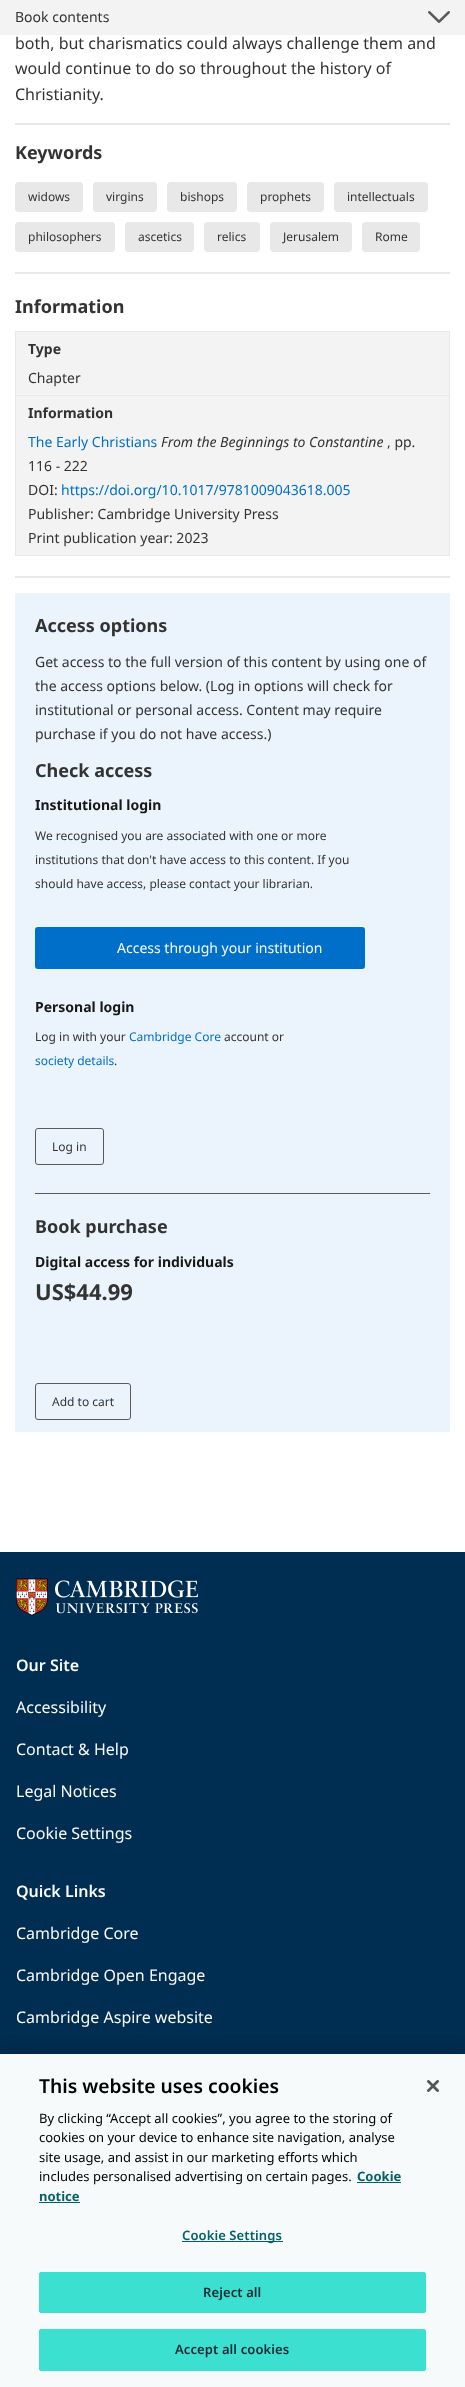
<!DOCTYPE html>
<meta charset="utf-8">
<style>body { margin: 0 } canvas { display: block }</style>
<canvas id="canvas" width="465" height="2387"></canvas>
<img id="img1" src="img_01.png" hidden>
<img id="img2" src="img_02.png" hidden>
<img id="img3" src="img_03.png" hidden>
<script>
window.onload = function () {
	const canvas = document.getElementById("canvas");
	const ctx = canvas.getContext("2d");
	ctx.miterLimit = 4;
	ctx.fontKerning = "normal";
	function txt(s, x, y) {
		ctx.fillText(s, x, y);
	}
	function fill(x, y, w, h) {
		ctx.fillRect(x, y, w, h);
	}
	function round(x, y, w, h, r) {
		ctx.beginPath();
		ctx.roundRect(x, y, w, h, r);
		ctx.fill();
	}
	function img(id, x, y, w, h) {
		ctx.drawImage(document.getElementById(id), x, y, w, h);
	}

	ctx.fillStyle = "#FFFFFF";
	fill(0, 0, 465, 2387);
	ctx.fillStyle = "#F3F3F3";
	fill(0, 0, 465, 35);
	img("img1", 428, 11, 22, 12);
	ctx.fillStyle = "#E8E8E8";
	fill(15, 123, 435, 2);
	round(15, 182, 68, 30, 4);
	round(93, 182, 64, 30, 4);
	round(167, 182, 70, 30, 4);
	round(247, 182, 77, 30, 4);
	round(334, 182, 94, 30, 4);
	round(15, 222, 100, 30, 4);
	round(125, 222, 69, 30, 4);
	round(204, 222, 56, 30, 4);
	round(270, 222, 82, 30, 4);
	round(362, 222, 58, 30, 4);
	fill(15, 272, 435, 2);
	ctx.fillStyle = "#F3F3F3";
	fill(16, 332, 433, 223);
	ctx.fillStyle = "#E8E8E8";
	fill(15, 331, 435, 1);
	fill(449, 331, 1, 225);
	fill(15, 331, 1, 225);
	fill(16, 395, 433, 1);
	fill(16, 555, 433, 1);
	fill(15, 576, 435, 2);
	ctx.fillStyle = "#EBF4FC";
	fill(15, 593, 435, 839);
	ctx.fillStyle = "#006FCA";
	round(35, 927, 330, 42, 3);
	ctx.beginPath();
	ctx.roundRect(35.5, 1128.5, 68, 36, 2.5);
	ctx.strokeStyle = "#595959";
	ctx.stroke();
	ctx.fillStyle = "#595959";
	fill(35, 1193, 395, 1);
	ctx.beginPath();
	ctx.roundRect(35.5, 1383.5, 95, 36, 2.5);
	ctx.stroke();
	ctx.fillStyle = "#002D52";
	fill(0, 1552, 465, 502);
	img("img2", 16, 1578, 182, 38);
	ctx.fillStyle = "rgba(0, 0, 0, 0.2)";
	ctx.filter = "blur(9px)";
	ctx.beginPath();
	ctx.rect(0, 2054, 465, 333);
	ctx.fill();
	ctx.filter = "none";
	ctx.fillStyle = "#F7FAFA";
	fill(0, 2054, 465, 333);
	ctx.fillStyle = "#036268";
	fill(357, 2182, 44, 1);
	fill(39, 2202, 41, 1);
	fill(182, 2241, 101, 1);
	ctx.fillStyle = "#3BE0D0";
	ctx.beginPath();
	ctx.roundRect(39.5, 2272.5, 386, 40, 1.5);
	ctx.fill();
	ctx.strokeStyle = "#3BE0D0";
	ctx.stroke();
	ctx.beginPath();
	ctx.roundRect(39.5, 2329.5, 386, 41, 1.5);
	ctx.fill();
	ctx.stroke();
	img("img3", 427, 2080, 12, 12);
	ctx.font = "14px Noto Sans";
	ctx.fillStyle = "#333333";
	txt("Book contents", 15, 22);
	ctx.font = "16px Noto Sans";
	txt("both, but charismatics could always challenge them and", 15, 49);
	txt("would continue to do so throughout the history of", 15, 74);
	txt("Christianity.", 15, 100);
	ctx.font = "bold 18px Noto Sans";
	txt("Keywords", 15, 159);
	ctx.font = "12px Noto Sans";
	txt("widows", 28, 201);
	txt("virgins", 106, 201);
	txt("bishops", 180, 201);
	txt("prophets", 260, 201);
	txt("intellectuals", 347, 201);
	txt("philosophers", 28, 241);
	txt("ascetics", 138, 241);
	txt("relics", 217, 241);
	txt("Jerusalem", 283, 241);
	txt("Rome", 375, 241);
	ctx.font = "bold 18px Noto Sans";
	txt("Information", 15, 313);
	ctx.font = "bold 14px Noto Sans";
	txt("Type", 28, 354);
	ctx.font = "14px Noto Sans";
	txt("Chapter", 28, 383);
	ctx.font = "bold 14px Noto Sans";
	txt("Information", 28, 418);
	ctx.font = "14px Noto Sans";
	ctx.fillStyle = "#006FCA";
	txt("The Early Christians", 28, 447);
	ctx.font = "italic 14px Noto Sans";
	ctx.fillStyle = "#333333";
	txt("From the Beginnings to Constantine", 161, 447);
	ctx.font = "14px Noto Sans";
	txt(", pp.", 387, 447);
	txt("116 - 222", 28, 471);
	txt("DOI:", 28, 495);
	ctx.fillStyle = "#006FCA";
	txt("https://doi.org/10.1017/9781009043618.005", 61, 495);
	ctx.fillStyle = "#333333";
	txt("Publisher: Cambridge University Press", 28, 519);
	txt("Print publication year: 2023", 28, 543);
	ctx.font = "bold 18px Noto Sans";
	txt("Access options", 35, 632);
	ctx.font = "14px Noto Sans";
	txt("Get access to the full version of this content by using one of", 35, 667);
	txt("the access options below. (Log in options will check for", 35, 691);
	txt("institutional or personal access. Content may require", 35, 715);
	txt("purchase if you do not have access.)", 35, 739);
	ctx.font = "bold 18px Noto Sans";
	txt("Check access", 35, 777);
	ctx.font = "bold 14px Noto Sans";
	ctx.fillStyle = "#181817";
	txt("Institutional login", 35, 810);
	ctx.font = "12px Noto Sans";
	ctx.fillStyle = "#333333";
	txt("We recognised you are associated with one or more", 35, 840);
	txt("institutions that don't have access to this content. If you", 35, 864);
	txt("should have access, please contact your librarian.", 35, 888);
	ctx.font = "14px Noto Sans";
	ctx.fillStyle = "#FAFAFA";
	txt("Access through your institution", 117, 953);
	ctx.font = "bold 14px Noto Sans";
	ctx.fillStyle = "#181817";
	txt("Personal login", 35, 1012);
	ctx.font = "12px Noto Sans";
	ctx.fillStyle = "#333333";
	txt("Log in with your", 35, 1041);
	ctx.fillStyle = "#006FCA";
	txt("Cambridge Core", 129, 1041);
	ctx.fillStyle = "#333333";
	txt("account or", 224, 1041);
	ctx.fillStyle = "#006FCA";
	txt("society details", 35, 1065);
	ctx.fillStyle = "#333333";
	txt(".", 114, 1065);
	txt("Log in", 52, 1151);
	ctx.font = "bold 18px Noto Sans";
	txt("Book purchase", 35, 1233);
	ctx.font = "bold 14px Noto Sans";
	ctx.fillStyle = "#181817";
	txt("Digital access for individuals", 35, 1267);
	ctx.font = "bold 22px Noto Sans";
	ctx.fillStyle = "#333333";
	txt("US$44.99", 35, 1300);
	ctx.font = "12px Noto Sans";
	txt("Add to cart", 52, 1406);
	ctx.font = "600 16px Noto Sans";
	ctx.fillStyle = "#FAFAFA";
	txt("Our Site", 16, 1671);
	ctx.font = "16px Noto Sans";
	txt("Accessibility", 16, 1713);
	txt("Contact & Help", 16, 1755);
	txt("Legal Notices", 16, 1797);
	txt("Cookie Settings", 16, 1839);
	ctx.font = "600 16px Noto Sans";
	txt("Quick Links", 16, 1897);
	ctx.font = "16px Noto Sans";
	txt("Cambridge Core", 16, 1939);
	txt("Cambridge Open Engage", 16, 1981);
	txt("Cambridge Aspire website", 16, 2023);
	ctx.font = "600 19.25px Noto Sans";
	ctx.fillStyle = "#000000";
	txt("This website uses cookies", 39, 2093);
	ctx.font = "13px Noto Sans";
	txt("By clicking “Accept all cookies”, you agree to the storing of", 39, 2123);
	txt("cookies on your device to enhance site navigation, analyse", 39, 2142);
	txt("site usage, and assist in our marketing efforts which", 39, 2162);
	txt("includes personalised advertising on certain pages.", 39, 2181);
	ctx.font = "bold 13px Noto Sans";
	ctx.fillStyle = "#036268";
	txt("Cookie", 357, 2181);
	txt("notice", 39, 2201);
	ctx.letterSpacing = "0.1px";
	ctx.font = "600 13px Noto Sans";
	txt("Cookie Settings", 182, 2240);
	ctx.fillStyle = "#112730";
	txt("Reject all", 203, 2297);
	txt("Accept all cookies", 175, 2354);
};
</script>
